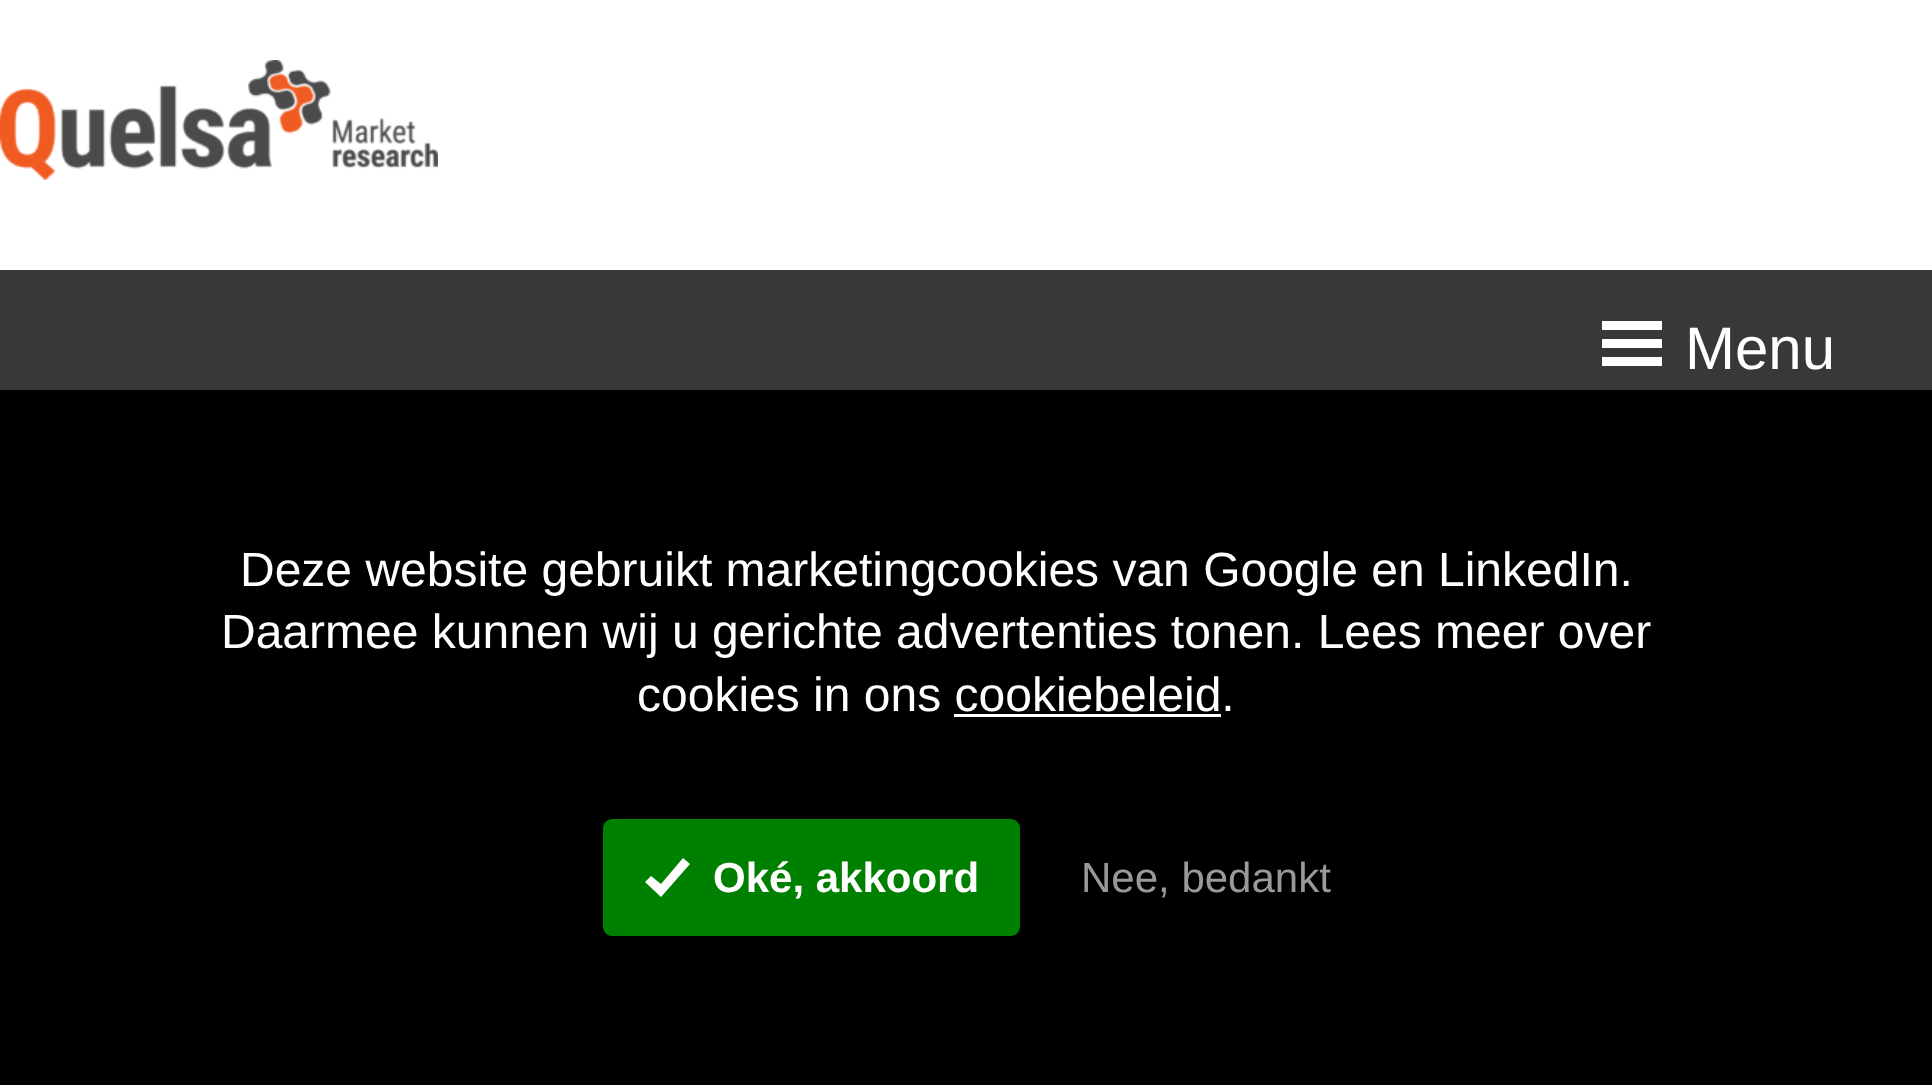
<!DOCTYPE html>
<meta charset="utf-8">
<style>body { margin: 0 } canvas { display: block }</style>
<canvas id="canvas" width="1932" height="1085"></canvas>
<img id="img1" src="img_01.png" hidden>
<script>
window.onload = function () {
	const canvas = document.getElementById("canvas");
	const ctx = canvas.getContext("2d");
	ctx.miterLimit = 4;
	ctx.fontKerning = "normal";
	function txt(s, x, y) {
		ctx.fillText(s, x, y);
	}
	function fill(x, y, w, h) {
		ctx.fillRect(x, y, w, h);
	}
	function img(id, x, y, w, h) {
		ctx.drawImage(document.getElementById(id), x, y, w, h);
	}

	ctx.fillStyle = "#393838";
	fill(0, 0, 1932, 1085);
	ctx.fillStyle = "#FFFFFF";
	fill(0, 0, 1932, 270);
	img("img1", 0, 60, 438, 120);
	fill(1602, 339, 60, 9);
	fill(1602, 321, 60, 9);
	fill(1602, 357, 60, 9);
	ctx.fillStyle = "#000000";
	fill(0, 390, 1932, 695);
	ctx.fillStyle = "#FFFFFF";
	fill(954, 714, 267, 3);
	ctx.fillStyle = "#008000";
	ctx.beginPath();
	ctx.roundRect(606, 822, 411, 111, 6);
	ctx.fill();
	ctx.strokeStyle = "#008000";
	ctx.lineWidth = 6;
	ctx.stroke();
	ctx.fillStyle = "#FFFFFF";
	ctx.beginPath();
	ctx.moveTo(690, 864);
	ctx.lineTo(683, 858);
	ctx.lineTo(661, 884);
	ctx.lineTo(651, 876);
	ctx.lineTo(645, 882);
	ctx.lineTo(661, 897);
	ctx.closePath();
	ctx.fill();
	ctx.font = "60px Liberation Sans";
	txt("Menu", 1685, 369);
	ctx.font = "48px Liberation Sans";
	txt("Deze website gebruikt marketingcookies van Google en LinkedIn.", 240, 586);
	txt("Daarmee kunnen wij u gerichte advertenties tonen. Lees meer over", 221, 648);
	txt("cookies in ons cookiebeleid.", 637, 711);
	ctx.font = "bold 42px Liberation Sans";
	txt("Oké, akkoord", 713, 892);
	ctx.font = "42px Liberation Sans";
	ctx.fillStyle = "#999999";
	txt("Nee, bedankt", 1081, 892);
};
</script>
